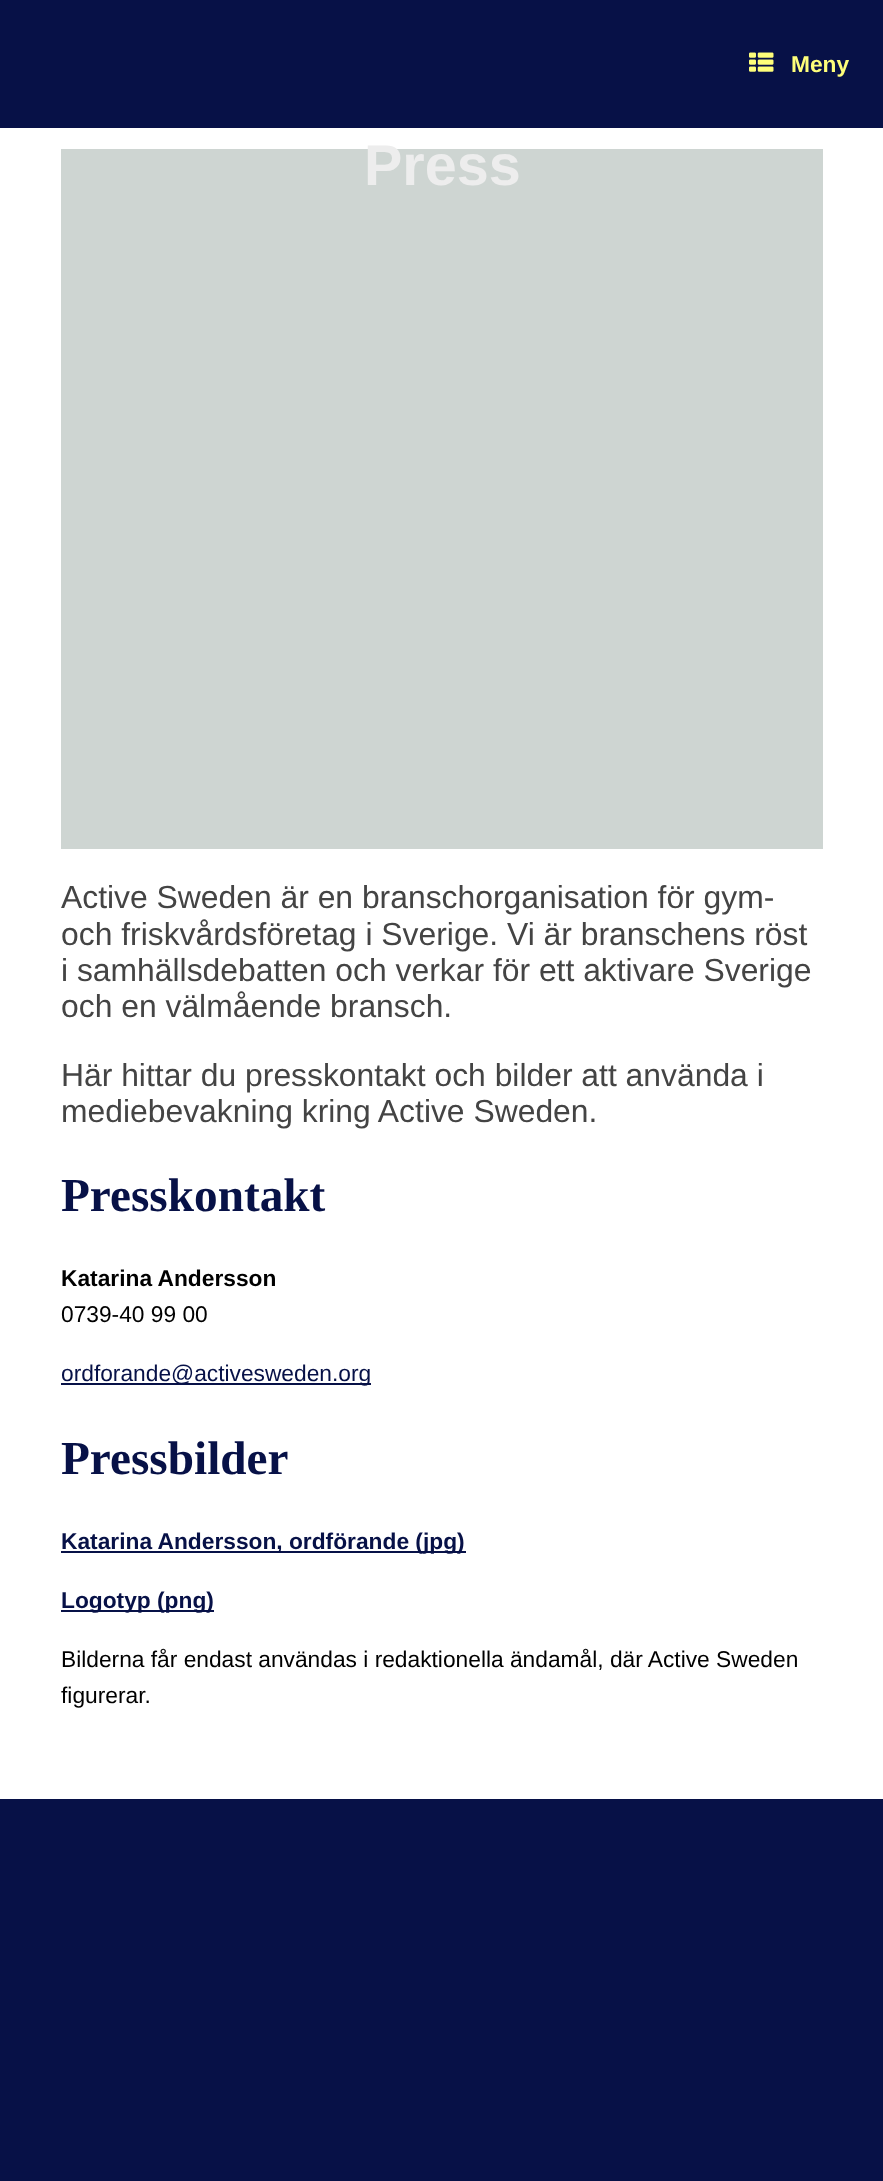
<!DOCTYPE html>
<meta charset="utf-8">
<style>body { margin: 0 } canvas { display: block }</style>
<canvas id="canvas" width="883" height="2181"></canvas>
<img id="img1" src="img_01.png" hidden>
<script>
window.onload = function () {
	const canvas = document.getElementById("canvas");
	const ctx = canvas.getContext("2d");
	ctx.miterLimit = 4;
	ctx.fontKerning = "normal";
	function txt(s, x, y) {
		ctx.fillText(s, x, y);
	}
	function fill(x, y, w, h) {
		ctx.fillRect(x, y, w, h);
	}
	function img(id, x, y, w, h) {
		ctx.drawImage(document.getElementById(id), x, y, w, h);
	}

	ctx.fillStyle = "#071147";
	fill(0, 0, 883, 2181);
	img("img1", 749, 52, 25, 20);
	ctx.fillStyle = "#FFFFFF";
	fill(0, 128, 883, 1671);
	ctx.fillStyle = "#CED5D2";
	fill(61, 149, 762, 700);
	ctx.fillStyle = "#071147";
	fill(61, 1383, 310, 2);
	fill(61, 1551, 405, 2);
	fill(61, 1610, 153, 2);
	ctx.font = "bold 22.75px Liberation Sans";
	ctx.fillStyle = "#FEFE7A";
	txt("Meny", 791, 72);
	ctx.font = "bold 57.5px Liberation Sans";
	ctx.fillStyle = "#EDEDED";
	txt("Press", 364, 185);
	ctx.font = "31.85px Liberation Sans";
	ctx.fillStyle = "#444444";
	txt("Active Sweden är en branschorganisation för gym-", 61, 908);
	txt("och friskvårdsföretag i Sverige. Vi är branschens röst", 61, 945);
	txt("i samhällsdebatten och verkar för ett aktivare Sverige", 61, 981);
	txt("och en välmående bransch.", 61, 1017);
	txt("Här hittar du presskontakt och bilder att använda i", 61, 1086);
	txt("mediebevakning kring Active Sweden.", 61, 1122);
	ctx.font = "bold 47.25px Liberation Serif";
	ctx.fillStyle = "#071147";
	txt("Presskontakt", 61, 1211);
	ctx.font = "bold 22.75px Liberation Sans";
	ctx.fillStyle = "#000000";
	txt("Katarina Andersson", 61, 1286);
	ctx.font = "22.75px Liberation Sans";
	txt("0739-40 99 00", 61, 1322);
	ctx.fillStyle = "#071147";
	txt("ordforande@activesweden.org", 61, 1381);
	ctx.font = "bold 47.25px Liberation Serif";
	txt("Pressbilder", 61, 1474);
	ctx.font = "bold 22.75px Liberation Sans";
	txt("Katarina Andersson, ordförande (jpg)", 61, 1549);
	txt("Logotyp (png)", 61, 1608);
	ctx.font = "22.75px Liberation Sans";
	ctx.fillStyle = "#000000";
	txt("Bilderna får endast användas i redaktionella ändamål, där Active Sweden", 61, 1667);
	txt("figurerar.", 61, 1703);
};
</script>
